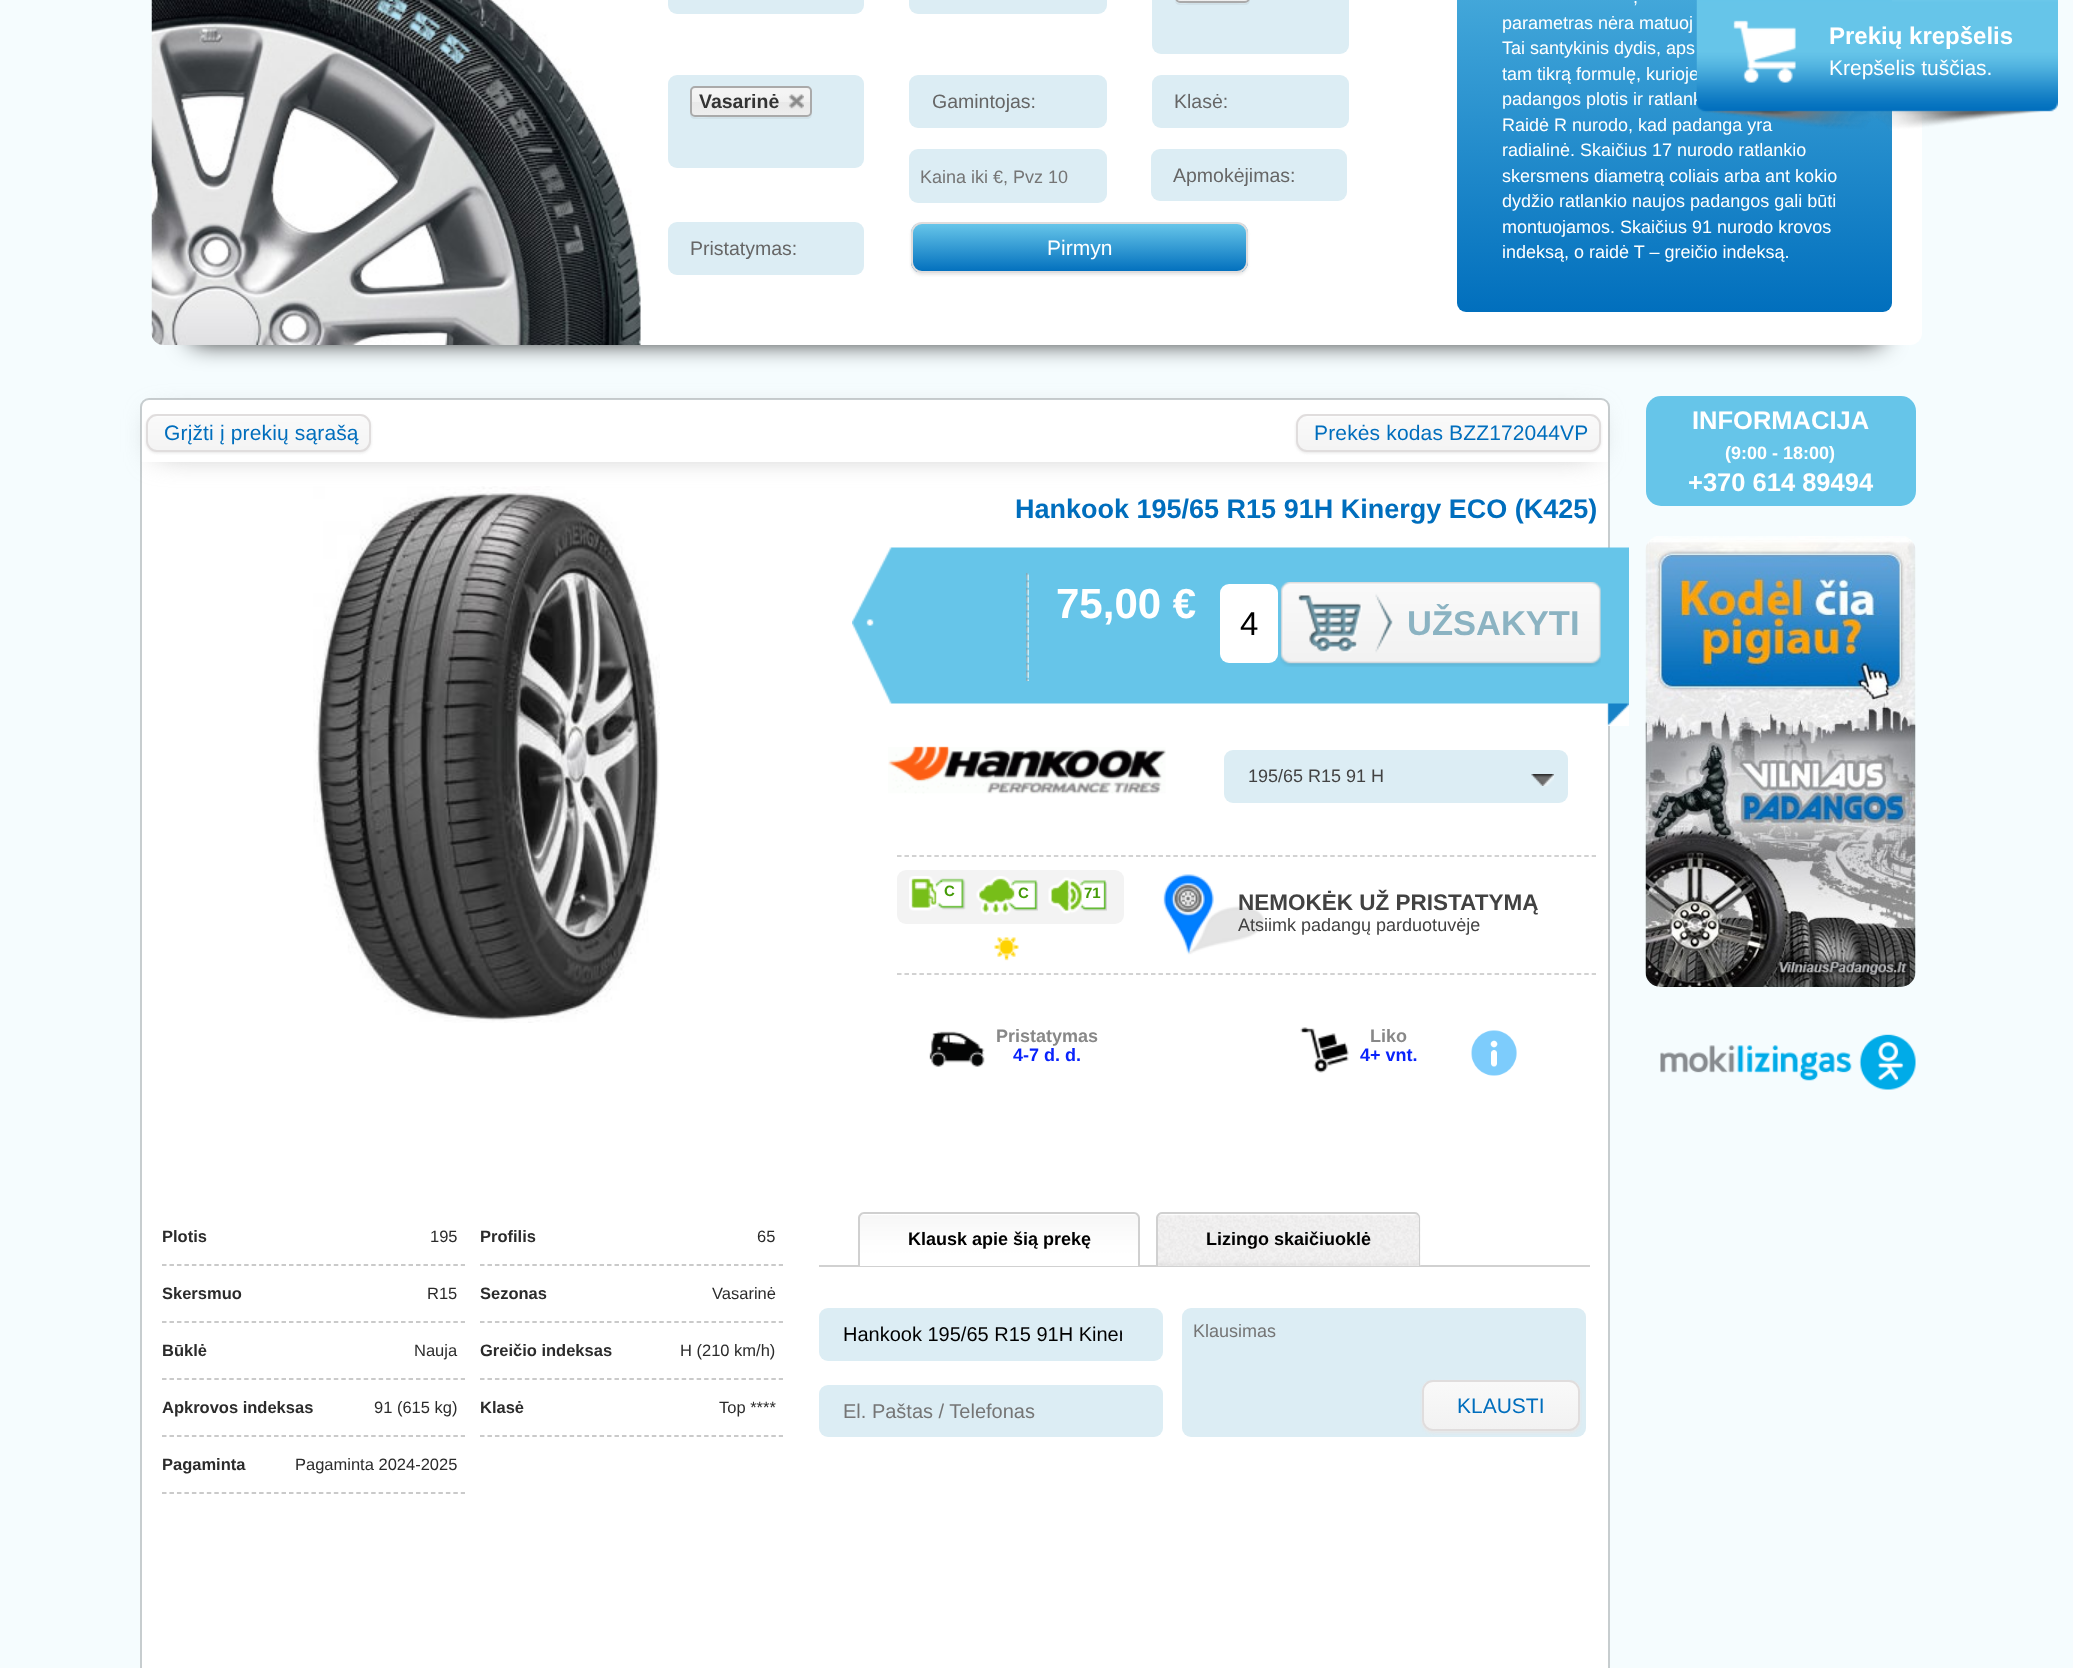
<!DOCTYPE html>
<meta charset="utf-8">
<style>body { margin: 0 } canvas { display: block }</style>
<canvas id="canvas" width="2073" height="1668"></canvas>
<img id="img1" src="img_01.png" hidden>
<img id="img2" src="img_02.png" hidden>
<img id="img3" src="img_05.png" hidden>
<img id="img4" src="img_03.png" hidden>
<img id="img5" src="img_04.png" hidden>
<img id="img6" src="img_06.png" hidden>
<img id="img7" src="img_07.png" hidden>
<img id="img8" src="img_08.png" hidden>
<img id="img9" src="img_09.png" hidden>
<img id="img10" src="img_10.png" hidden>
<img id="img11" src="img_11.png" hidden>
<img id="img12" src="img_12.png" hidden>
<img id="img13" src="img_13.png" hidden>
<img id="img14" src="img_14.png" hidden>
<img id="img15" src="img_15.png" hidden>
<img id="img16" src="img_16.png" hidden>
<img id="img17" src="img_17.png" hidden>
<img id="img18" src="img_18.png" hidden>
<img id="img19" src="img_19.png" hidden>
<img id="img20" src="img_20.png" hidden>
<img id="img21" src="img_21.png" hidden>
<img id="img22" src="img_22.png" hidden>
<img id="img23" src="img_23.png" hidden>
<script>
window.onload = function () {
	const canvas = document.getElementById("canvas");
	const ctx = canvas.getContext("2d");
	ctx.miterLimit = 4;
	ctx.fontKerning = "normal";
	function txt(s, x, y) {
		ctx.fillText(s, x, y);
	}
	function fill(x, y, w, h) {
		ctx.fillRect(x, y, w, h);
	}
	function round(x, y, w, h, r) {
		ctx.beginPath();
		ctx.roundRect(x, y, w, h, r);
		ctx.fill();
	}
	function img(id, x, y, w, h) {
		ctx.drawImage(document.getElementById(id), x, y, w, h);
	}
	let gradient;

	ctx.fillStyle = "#F5FCFE";
	fill(0, 0, 2073, 1668);
	ctx.fillStyle = "#000000";
	ctx.filter = "blur(13px)";
	ctx.beginPath();
	ctx.rect(192, -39, 1689, 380);
	ctx.fill();
	ctx.filter = "none";
	ctx.fillStyle = "#FFFFFF";
	round(152, -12, 1770, 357, 12);
	img("img1", 151, 0, 490, 345);
	ctx.fillStyle = "#DCEDF4";
	round(668, -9, 196, 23, 9);
	round(909, -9, 198, 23, 9);
	round(1152, -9, 197, 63, 9);
	ctx.fillStyle = "#D1E1E8";
	ctx.beginPath();
	ctx.moveTo(1175, 1);
	ctx.bezierCurveTo(1175, 3, 1177, 5, 1180, 5);
	ctx.lineTo(1245, 5);
	ctx.bezierCurveTo(1248, 5, 1250, 3, 1250, 0);
	ctx.lineTo(1250, -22);
	ctx.lineTo(1249, -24);
	ctx.lineTo(1250, -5);
	ctx.bezierCurveTo(1250, 6, 1245, 3, 1234, 3);
	ctx.lineTo(1190, 3);
	ctx.bezierCurveTo(1188, 3, 1178, 5, 1175, 1);
	ctx.closePath();
	ctx.fill();
	gradient = ctx.createLinearGradient(1212, -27, 1212, 1.5);
	gradient.addColorStop(0.2, "#F4F4F4");
	gradient.addColorStop(0.5, "#F0F0F0");
	gradient.addColorStop(0.52, "#E8E8E8");
	gradient.addColorStop(1, "#EEEEEE");
	ctx.fillStyle = gradient;
	round(1176, -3, 72, 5, 3);
	ctx.beginPath();
	ctx.roundRect(1176, -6, 73, 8, 4);
	ctx.strokeStyle = "#AAAAAA";
	ctx.lineWidth = 2;
	ctx.stroke();
	ctx.fillStyle = "#DCEDF4";
	round(668, 75, 196, 93, 9);
	ctx.fillStyle = "#D1E1E8";
	ctx.beginPath();
	ctx.moveTo(690, 112);
	ctx.lineTo(690, 114);
	ctx.bezierCurveTo(690, 117, 692, 119, 695, 119);
	ctx.lineTo(807, 119);
	ctx.bezierCurveTo(810, 119, 812, 117, 812, 114);
	ctx.lineTo(812, 92);
	ctx.lineTo(811, 90);
	ctx.lineTo(812, 109);
	ctx.bezierCurveTo(812, 112, 812, 117, 807, 117);
	ctx.lineTo(713, 117);
	ctx.bezierCurveTo(704, 117, 690, 120, 690, 112);
	ctx.closePath();
	ctx.fill();
	gradient = ctx.createLinearGradient(751, 87, 751, 116);
	gradient.addColorStop(0.2, "#F4F4F4");
	gradient.addColorStop(0.5, "#F0F0F0");
	gradient.addColorStop(0.52, "#E8E8E8");
	gradient.addColorStop(1, "#EEEEEE");
	ctx.fillStyle = gradient;
	round(692, 87, 118, 29, 3);
	ctx.beginPath();
	ctx.roundRect(691, 87, 120, 29, 4);
	ctx.stroke();
	img("img2", 788, 94, 16, 15);
	ctx.fillStyle = "#DCEDF4";
	round(909, 75, 198, 53, 9);
	round(1152, 75, 197, 53, 9);
	round(909, 149, 198, 54, 9);
	round(1151, 149, 196, 52, 9);
	round(668, 222, 196, 53, 9);
	ctx.fillStyle = "#E7E7E7";
	ctx.filter = "blur(1.5px)";
	ctx.beginPath();
	ctx.roundRect(911, 224, 337, 51, 11);
	ctx.fill();
	ctx.filter = "none";
	ctx.save();
	ctx.beginPath();
	ctx.roundRect(911, 222, 337, 51, 11);
	ctx.clip();
	gradient = ctx.createLinearGradient(1079, 224, 1079, 272);
	gradient.addColorStop(0, "#66C5E9");
	gradient.addColorStop(1, "#016FBD");
	ctx.fillStyle = gradient;
	fill(911, 224, 337, 48);
	ctx.restore();
	ctx.beginPath();
	ctx.roundRect(912, 223, 335, 49, 10);
	ctx.strokeStyle = "#E0DDDD";
	ctx.stroke();
	gradient = ctx.createLinearGradient(1674, -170, 1674, 312);
	gradient.addColorStop(0, "#66C5E9");
	gradient.addColorStop(1, "#016FBD");
	ctx.fillStyle = gradient;
	round(1457, -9, 435, 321, 9);
	ctx.fillStyle = "#FFFFFF";
	ctx.beginPath();
	ctx.roundRect(141, 399, 1468, 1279, 8);
	ctx.fill();
	ctx.strokeStyle = "#C7CDCF";
	ctx.stroke();
	img("img3", 313, 486, 347, 537);
	ctx.save();
	ctx.beginPath();
	ctx.moveTo(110, 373);
	ctx.lineTo(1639, 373);
	ctx.lineTo(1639, 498);
	ctx.lineTo(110, 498);
	ctx.closePath();
	ctx.moveTo(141, 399);
	ctx.lineTo(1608, 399);
	ctx.lineTo(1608, 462);
	ctx.lineTo(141, 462);
	ctx.closePath();
	ctx.clip("evenodd");
	ctx.fillStyle = "#AAAAAA";
	ctx.filter = "blur(15px)";
	ctx.beginPath();
	ctx.rect(156, 419, 1437, 33);
	ctx.fill();
	ctx.filter = "none";
	ctx.restore();
	ctx.fillStyle = "#E7E7E7";
	ctx.filter = "blur(1.5px)";
	ctx.beginPath();
	ctx.roundRect(146, 416, 225, 37, 11);
	ctx.fill();
	ctx.filter = "none";
	img("img4", 146, 414, 224, 37);
	ctx.beginPath();
	ctx.roundRect(147, 415, 223, 36, 10);
	ctx.strokeStyle = "#E0DDDD";
	ctx.stroke();
	ctx.filter = "blur(1.5px)";
	ctx.beginPath();
	ctx.roundRect(1296, 416, 305, 37, 11);
	ctx.fill();
	ctx.filter = "none";
	img("img5", 1296, 414, 304, 37);
	ctx.beginPath();
	ctx.roundRect(1297, 415, 303, 36, 10);
	ctx.stroke();
	img("img6", 852, 547, 777, 179);
	img("img7", 1026, 573, 3, 108);
	ctx.fillStyle = "#FFFFFF";
	round(1220, 584, 58, 79, 9);
	img("img8", 1280, 582, 321, 85);
	img("img9", 888, 746, 278, 48);
	ctx.fillStyle = "#DCEDF4";
	round(1224, 750, 344, 53, 9);
	img("img10", 1531, 774, 23, 12);
	ctx.beginPath();
	ctx.moveTo(897, 856);
	ctx.lineTo(1596, 856);
	ctx.strokeStyle = "#C3C3C3";
	ctx.lineWidth = 1.5;
	ctx.setLineDash([4.5, 2.97]);
	ctx.stroke();
	ctx.beginPath();
	ctx.moveTo(897, 974);
	ctx.lineTo(1596, 974);
	ctx.stroke();
	ctx.fillStyle = "#F3F3F3";
	round(897, 870, 227, 54, 9);
	img("img11", 909, 876, 57, 35);
	img("img12", 976, 876, 62, 39);
	img("img13", 1048, 877, 59, 37);
	img("img14", 994, 937, 25, 24);
	img("img15", 1163, 874, 102, 81);
	img("img16", 929, 1031, 56, 36);
	img("img17", 1300, 1027, 49, 46);
	img("img18", 1471, 1030, 46, 46);
	ctx.beginPath();
	ctx.moveTo(162, 1265);
	ctx.lineTo(465, 1265);
	ctx.strokeStyle = "#B9B9B9";
	ctx.stroke();
	ctx.beginPath();
	ctx.moveTo(480, 1265);
	ctx.lineTo(783, 1265);
	ctx.stroke();
	ctx.beginPath();
	ctx.moveTo(162, 1322);
	ctx.lineTo(465, 1322);
	ctx.stroke();
	ctx.beginPath();
	ctx.moveTo(480, 1322);
	ctx.lineTo(783, 1322);
	ctx.stroke();
	ctx.beginPath();
	ctx.moveTo(162, 1379);
	ctx.lineTo(465, 1379);
	ctx.stroke();
	ctx.beginPath();
	ctx.moveTo(480, 1379);
	ctx.lineTo(783, 1379);
	ctx.stroke();
	ctx.beginPath();
	ctx.moveTo(162, 1436);
	ctx.lineTo(465, 1436);
	ctx.stroke();
	ctx.beginPath();
	ctx.moveTo(480, 1436);
	ctx.lineTo(783, 1436);
	ctx.stroke();
	ctx.beginPath();
	ctx.moveTo(162, 1493);
	ctx.lineTo(465, 1493);
	ctx.stroke();
	ctx.fillStyle = "#D1D1D1";
	fill(819, 1265, 771, 2);
	img("img19", 858, 1215, 282, 51);
	ctx.fillStyle = "#D0D0D0";
	ctx.beginPath();
	ctx.moveTo(864, 1212);
	ctx.lineTo(1134, 1212);
	ctx.bezierCurveTo(1137, 1212, 1140, 1215, 1140, 1218);
	ctx.lineTo(1140, 1266);
	ctx.lineTo(858, 1266);
	ctx.lineTo(858, 1218);
	ctx.bezierCurveTo(858, 1215, 861, 1212, 864, 1212);
	ctx.closePath();
	ctx.moveTo(864, 1214);
	ctx.lineTo(1134, 1214);
	ctx.bezierCurveTo(1136, 1214, 1138, 1216, 1138, 1218);
	ctx.lineTo(1138, 1266);
	ctx.lineTo(860, 1266);
	ctx.lineTo(860, 1218);
	ctx.bezierCurveTo(860, 1216, 862, 1214, 864, 1214);
	ctx.closePath();
	ctx.fill("evenodd");
	img("img20", 1156, 1212, 265, 54);
	ctx.beginPath();
	ctx.moveTo(1162, 1212);
	ctx.lineTo(1414, 1212);
	ctx.bezierCurveTo(1418, 1212, 1420, 1215, 1420, 1218);
	ctx.lineTo(1420, 1266);
	ctx.lineTo(1156, 1266);
	ctx.lineTo(1156, 1218);
	ctx.bezierCurveTo(1156, 1215, 1159, 1212, 1162, 1212);
	ctx.closePath();
	ctx.moveTo(1162, 1214);
	ctx.lineTo(1414, 1214);
	ctx.bezierCurveTo(1417, 1214, 1419, 1216, 1419, 1218);
	ctx.lineTo(1419, 1266);
	ctx.lineTo(1158, 1266);
	ctx.lineTo(1158, 1218);
	ctx.bezierCurveTo(1158, 1216, 1160, 1214, 1162, 1214);
	ctx.closePath();
	ctx.fill("evenodd");
	ctx.fillStyle = "#DCEDF4";
	round(819, 1308, 344, 53, 9);
	round(819, 1385, 344, 52, 9);
	round(1182, 1308, 404, 129, 9);
	ctx.fillStyle = "#E7E7E7";
	ctx.filter = "blur(1.5px)";
	ctx.beginPath();
	ctx.roundRect(1422, 1382, 158, 51, 11);
	ctx.fill();
	ctx.filter = "none";
	ctx.save();
	ctx.beginPath();
	ctx.roundRect(1422, 1380, 158, 51, 11);
	ctx.clip();
	gradient = ctx.createLinearGradient(1501, 1382, 1501, 1430);
	gradient.addColorStop(0, "#F9F9F9");
	gradient.addColorStop(1, "#F2F2F2");
	ctx.fillStyle = gradient;
	fill(1422, 1382, 158, 48);
	ctx.restore();
	ctx.beginPath();
	ctx.roundRect(1423, 1381, 156, 49, 10);
	ctx.strokeStyle = "#E0DDDD";
	ctx.lineWidth = 2;
	ctx.setLineDash([]);
	ctx.stroke();
	ctx.fillStyle = "#66C5E9";
	round(1646, 396, 270, 110, 15);
	img("img21", 1645, 536, 271, 451);
	img("img22", 1660, 1034, 256, 56);
	ctx.font = "bold 19.5px Liberation Sans";
	ctx.fillStyle = "#333333";
	txt("Vasarinė", 699, 108);
	ctx.font = "19.5px Liberation Sans";
	ctx.fillStyle = "#666666";
	txt("Gamintojas:", 932, 108);
	txt("Klasė:", 1174, 108);
	ctx.font = "18px Liberation Sans";
	ctx.fillStyle = "#757575";
	txt("Kaina iki €, Pvz 10", 920, 183);
	ctx.font = "19.5px Liberation Sans";
	ctx.fillStyle = "#666666";
	txt("Apmokėjimas:", 1173, 182);
	txt("Pristatymas:", 690, 255);
	ctx.font = "21px Liberation Sans";
	ctx.fillStyle = "#FFFFFF";
	txt("Pirmyn", 1047, 255);
	ctx.font = "18px Liberation Sans";
	txt(",", 1633, 3);
	txt("parametras nėra matuoj", 1502, 29);
	txt("Tai santykinis dydis, aps", 1502, 54);
	txt("tam tikrą formulę, kurioje", 1502, 80);
	txt("padangos plotis ir ratlank", 1502, 105);
	txt("Raidė R nurodo, kad padanga yra", 1502, 131);
	txt("radialinė. Skaičius 17 nurodo ratlankio", 1502, 156);
	txt("skersmens diametrą coliais arba ant kokio", 1502, 182);
	txt("dydžio ratlankio naujos padangos gali būti", 1502, 207);
	txt("montuojamos. Skaičius 91 nurodo krovos", 1502, 233);
	txt("indeksą, o raidė T – greičio indeksą.", 1502, 258);
	ctx.letterSpacing = "0.15px";
	ctx.font = "21px Liberation Sans";
	ctx.fillStyle = "#006EBD";
	txt("Grįžti į prekių sąrašą", 164, 440);
	txt("Prekės kodas BZZ172044VP", 1314, 440);
	ctx.letterSpacing = "0px";
	ctx.font = "bold 27px Liberation Sans";
	txt("Hankook 195/65 R15 91H Kinergy ECO (K425)", 1015, 518);
	ctx.font = "bold 42px Liberation Sans";
	ctx.fillStyle = "#FFFFFF";
	txt("75,00 €", 1056, 618);
	ctx.font = "33px Liberation Sans";
	ctx.fillStyle = "#000000";
	txt("4", 1240, 635);
	ctx.font = "bold 34.5px Liberation Sans";
	ctx.fillStyle = "#8BB3C2";
	txt("UŽSAKYTI", 1407, 635);
	ctx.font = "18px Liberation Sans";
	ctx.fillStyle = "#424242";
	txt("195/65 R15 91 H", 1248, 782);
	ctx.font = "bold 15px Liberation Sans";
	ctx.fillStyle = "#449B07";
	txt("C", 944, 896);
	txt("C", 1018, 898);
	txt("71", 1084, 898);
	ctx.font = "bold 22.5px Liberation Sans";
	ctx.fillStyle = "#424242";
	txt("NEMOKĖK UŽ PRISTATYMĄ", 1238, 910);
	ctx.font = "18px Liberation Sans";
	txt("Atsiimk padangų parduotuvėje", 1238, 931);
	ctx.font = "bold 18px Liberation Sans";
	ctx.fillStyle = "#888888";
	txt("Pristatymas", 996, 1042);
	ctx.fillStyle = "#0923FB";
	txt("4-7 d. d.", 1013, 1061);
	ctx.fillStyle = "#888888";
	txt("Liko", 1370, 1042);
	ctx.fillStyle = "#0923FB";
	txt("4+ vnt.", 1360, 1061);
	ctx.font = "bold 16.5px Liberation Sans";
	ctx.fillStyle = "#2B2B2B";
	txt("Plotis", 162, 1242);
	ctx.font = "16.5px Liberation Sans";
	txt("195", 430, 1242);
	ctx.font = "bold 16.5px Liberation Sans";
	txt("Profilis", 480, 1242);
	ctx.font = "16.5px Liberation Sans";
	txt("65", 757, 1242);
	ctx.font = "bold 16.5px Liberation Sans";
	txt("Skersmuo", 162, 1299);
	ctx.font = "16.5px Liberation Sans";
	txt("R15", 427, 1299);
	ctx.font = "bold 16.5px Liberation Sans";
	txt("Sezonas", 480, 1299);
	ctx.font = "16.5px Liberation Sans";
	txt("Vasarinė", 712, 1299);
	ctx.font = "bold 16.5px Liberation Sans";
	txt("Būklė", 162, 1356);
	ctx.font = "16.5px Liberation Sans";
	txt("Nauja", 414, 1356);
	ctx.font = "bold 16.5px Liberation Sans";
	txt("Greičio indeksas", 480, 1356);
	ctx.font = "16.5px Liberation Sans";
	txt("H (210 km/h)", 680, 1356);
	ctx.font = "bold 16.5px Liberation Sans";
	txt("Apkrovos indeksas", 162, 1413);
	ctx.font = "16.5px Liberation Sans";
	txt("91 (615 kg)", 374, 1413);
	ctx.font = "bold 16.5px Liberation Sans";
	txt("Klasė", 480, 1413);
	ctx.font = "16.5px Liberation Sans";
	txt("Top ****", 719, 1413);
	ctx.font = "bold 16.5px Liberation Sans";
	txt("Pagaminta", 162, 1470);
	ctx.font = "16.5px Liberation Sans";
	txt("Pagaminta 2024-2025", 295, 1470);
	ctx.font = "bold 18px Liberation Sans";
	ctx.fillStyle = "#000000";
	txt("Klausk apie šią prekę", 908, 1245);
	txt("Lizingo skaičiuoklė", 1206, 1245);
	ctx.save();
	ctx.beginPath();
	ctx.rect(843, 1323, 279, 23);
	ctx.clip();
	ctx.font = "20px Liberation Sans";
	txt("Hankook 195/65 R15 91H Kiner", 843, 1341);
	ctx.restore();
	ctx.font = "20px Liberation Sans";
	ctx.fillStyle = "#757575";
	txt("El. Paštas / Telefonas", 843, 1418);
	ctx.font = "18px Liberation Sans";
	txt("Klausimas", 1193, 1337);
	ctx.font = "21px Liberation Sans";
	ctx.fillStyle = "#006EBD";
	txt("KLAUSTI", 1457, 1413);
	ctx.font = "bold 25.5px Liberation Sans";
	ctx.fillStyle = "#FFFFFF";
	txt("INFORMACIJA", 1692, 429);
	ctx.font = "bold 18px Liberation Sans";
	txt("(9:00 - 18:00)", 1725, 459);
	ctx.font = "bold 25.5px Liberation Sans";
	txt("+370 614 89494", 1688, 491);
	img("img23", 1696, 0, 362, 131);
	ctx.font = "bold 24px Liberation Sans";
	txt("Prekių krepšelis", 1829, 44);
	ctx.font = "21px Liberation Sans";
	txt("Krepšelis tuščias.", 1829, 75);
};
</script>
